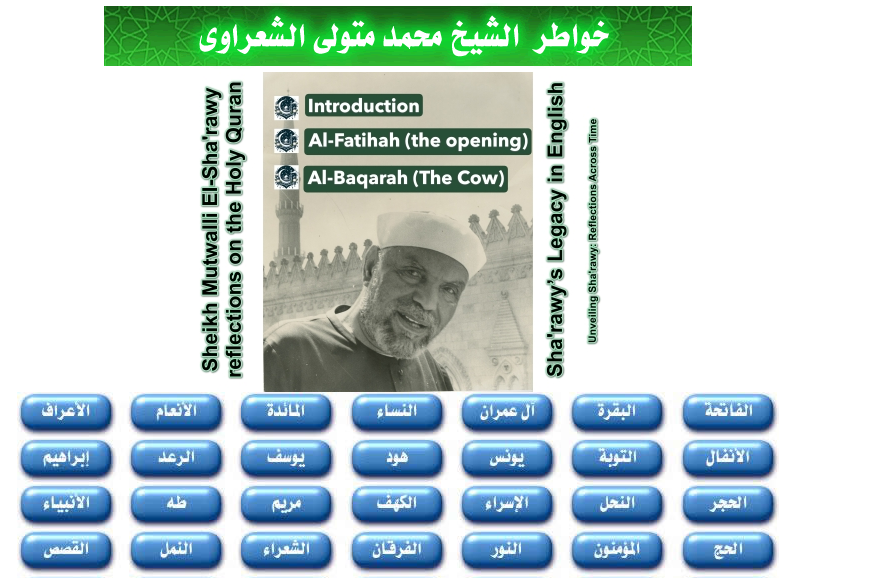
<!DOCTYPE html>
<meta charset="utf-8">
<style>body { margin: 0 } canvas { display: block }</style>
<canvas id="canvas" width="870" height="578"></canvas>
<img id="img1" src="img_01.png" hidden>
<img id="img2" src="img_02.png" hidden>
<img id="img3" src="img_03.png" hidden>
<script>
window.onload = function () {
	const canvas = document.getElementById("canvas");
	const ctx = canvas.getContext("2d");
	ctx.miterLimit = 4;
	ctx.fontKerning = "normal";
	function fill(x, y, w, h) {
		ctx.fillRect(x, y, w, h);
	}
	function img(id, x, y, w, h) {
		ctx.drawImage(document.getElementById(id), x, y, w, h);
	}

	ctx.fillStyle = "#FFFFFF";
	fill(0, 0, 870, 578);
	img("img1", 104, 3, 588, 67);
	img("img2", 199, 72, 403, 320);
	img("img3", 17, 392, 762, 186);
};
</script>
